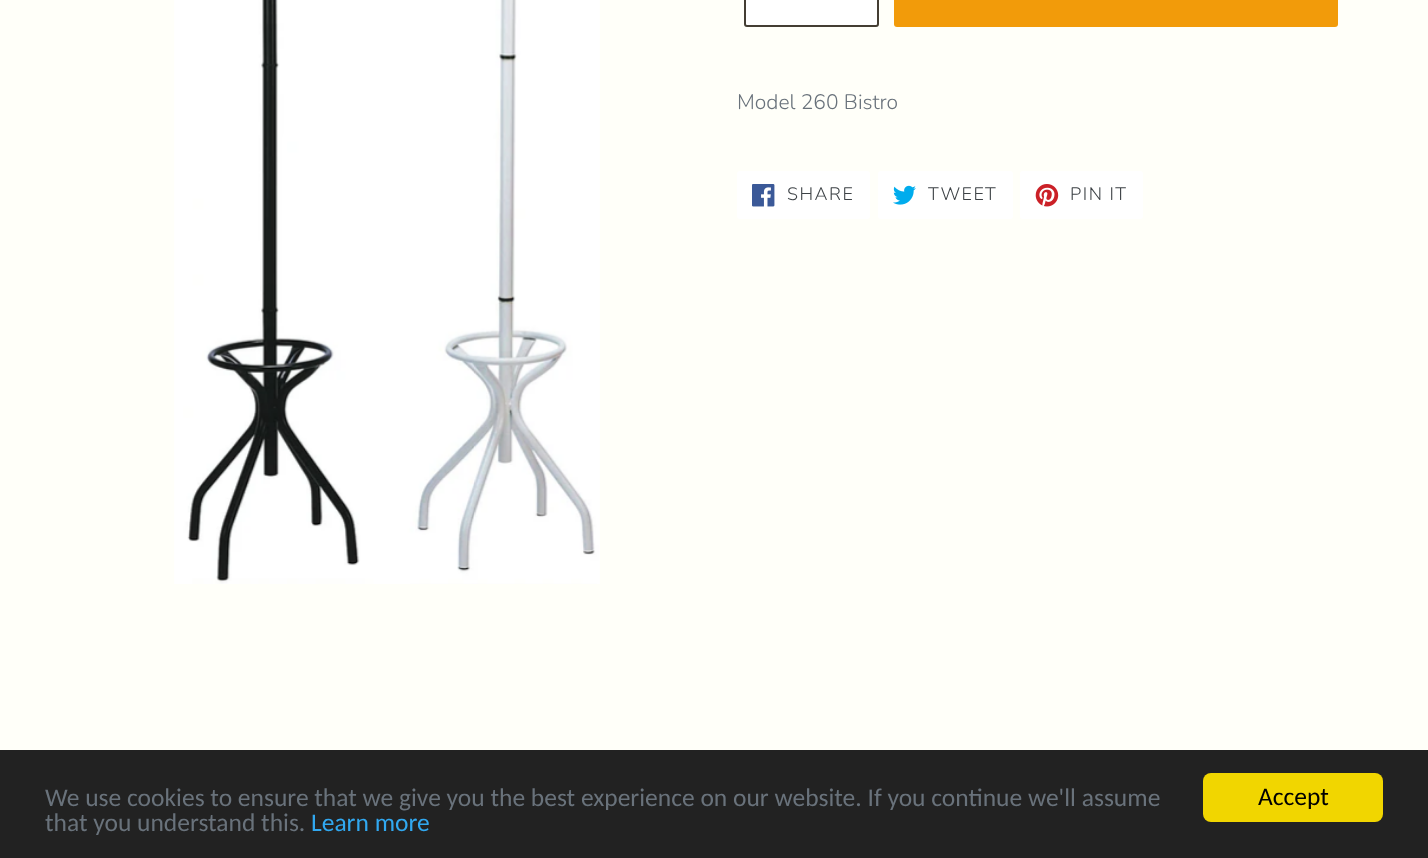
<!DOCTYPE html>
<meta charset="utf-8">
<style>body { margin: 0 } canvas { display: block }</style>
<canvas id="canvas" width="1428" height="858"></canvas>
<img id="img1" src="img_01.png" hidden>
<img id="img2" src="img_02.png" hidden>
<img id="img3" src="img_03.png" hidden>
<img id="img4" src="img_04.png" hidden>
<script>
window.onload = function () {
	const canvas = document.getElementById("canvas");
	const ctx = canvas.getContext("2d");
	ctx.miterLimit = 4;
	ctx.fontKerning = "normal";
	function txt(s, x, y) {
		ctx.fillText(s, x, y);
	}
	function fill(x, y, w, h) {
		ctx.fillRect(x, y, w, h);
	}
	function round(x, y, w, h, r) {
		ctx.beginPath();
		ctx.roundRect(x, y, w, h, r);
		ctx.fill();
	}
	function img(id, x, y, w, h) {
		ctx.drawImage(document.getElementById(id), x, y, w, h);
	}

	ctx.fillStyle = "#FFFFF9";
	fill(0, 0, 1428, 858);
	img("img1", 174, 0, 426, 584);
	ctx.fillStyle = "#FFFFFF";
	round(744, -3, 135, 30, 3);
	ctx.beginPath();
	ctx.roundRect(745, -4, 133, 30, 2);
	ctx.strokeStyle = "rgba(35, 28, 15, 0.85)";
	ctx.lineWidth = 2;
	ctx.stroke();
	ctx.fillStyle = "#F29B0A";
	round(894, -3, 444, 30, 3);
	ctx.fillStyle = "#FFFFFF";
	round(737, 171, 133, 48, 3);
	img("img2", 752, 184, 23, 23);
	round(878, 171, 135, 48, 3);
	img("img3", 893, 185, 23, 20);
	round(1020, 171, 123, 48, 3);
	img("img4", 1035, 184, 24, 23);
	ctx.fillStyle = "#222222";
	fill(0, 750, 1428, 108);
	ctx.fillStyle = "#F1D600";
	round(1203, 773, 180, 49, 8);
	ctx.font = "300 21px Nunito";
	ctx.fillStyle = "#69727B";
	txt("Model 260 Bistro", 737, 109);
	ctx.letterSpacing = "1.5px";
	ctx.font = "300 18px Nunito";
	ctx.fillStyle = "#3D4246";
	txt("SHARE", 787, 200);
	txt("TWEET", 928, 200);
	txt("PIN IT", 1070, 200);
	ctx.letterSpacing = "0px";
	ctx.font = "25.5px Carlito";
	ctx.fillStyle = "#69727B";
	txt("We use cookies to ensure that we give you the best experience on our website. If you continue we'll assume", 45, 806);
	txt("that you understand this.", 45, 831);
	ctx.fillStyle = "#31A8F0";
	txt("Learn more", 311, 831);
	ctx.fillStyle = "#000000";
	txt("Accept", 1258, 805);
};
</script>
